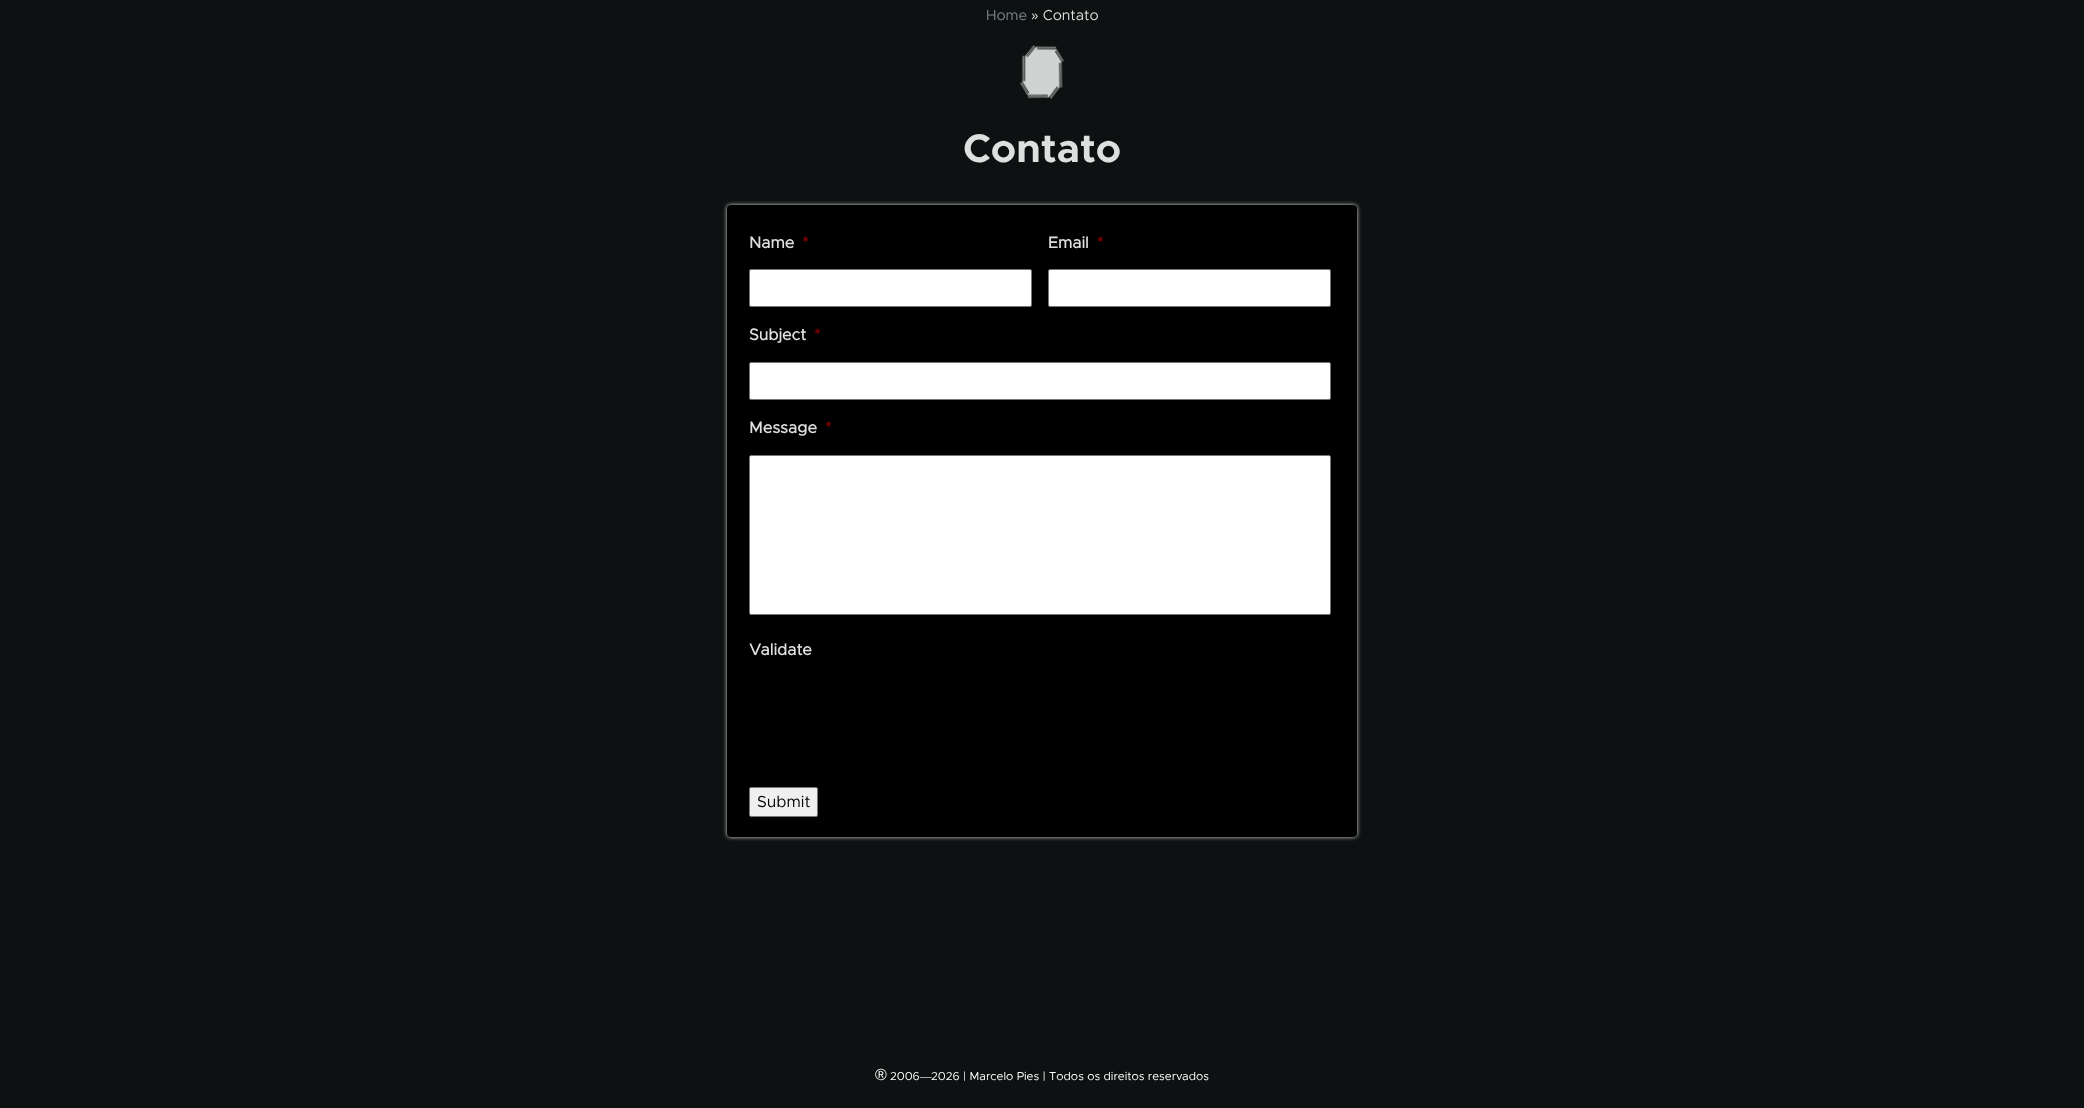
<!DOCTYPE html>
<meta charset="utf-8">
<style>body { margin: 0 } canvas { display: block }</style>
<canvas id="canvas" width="2084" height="1108"></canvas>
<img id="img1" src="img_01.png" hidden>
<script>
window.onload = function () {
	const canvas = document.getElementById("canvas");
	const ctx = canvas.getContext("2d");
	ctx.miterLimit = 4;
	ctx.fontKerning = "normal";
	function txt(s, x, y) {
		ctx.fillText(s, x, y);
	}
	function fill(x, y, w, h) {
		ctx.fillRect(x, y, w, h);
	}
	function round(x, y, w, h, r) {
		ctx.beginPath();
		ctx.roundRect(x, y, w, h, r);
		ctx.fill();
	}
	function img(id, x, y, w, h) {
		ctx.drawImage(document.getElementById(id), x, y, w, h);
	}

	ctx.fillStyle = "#0E1111";
	fill(0, 0, 2084, 1108);
	ctx.fillStyle = "#DEDFDF";
	ctx.filter = "blur(2px)";
	ctx.beginPath();
	ctx.roundRect(727, 205, 630, 632, 4);
	ctx.fill();
	ctx.filter = "none";
	ctx.fillStyle = "#000000";
	round(727, 205, 630, 632, 4);
	ctx.fillStyle = "#FFFFFF";
	ctx.beginPath();
	ctx.roundRect(749.5, 269.5, 282, 37, 1.5);
	ctx.fill();
	ctx.strokeStyle = "#767676";
	ctx.stroke();
	ctx.beginPath();
	ctx.roundRect(1048.5, 269.5, 282, 37, 1.5);
	ctx.fill();
	ctx.stroke();
	ctx.beginPath();
	ctx.roundRect(749.5, 362.5, 581, 37, 1.5);
	ctx.fill();
	ctx.stroke();
	ctx.beginPath();
	ctx.roundRect(749.5, 455.5, 581, 159, 1.5);
	ctx.fill();
	ctx.stroke();
	ctx.fillStyle = "#EFEFEF";
	ctx.beginPath();
	ctx.roundRect(749.5, 787.5, 68, 29, 1.5);
	ctx.fill();
	ctx.stroke();
	img("img1", 1020, 45, 44, 54);
	ctx.font = "14.5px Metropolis";
	ctx.fillStyle = "#7B8888";
	txt("Home", 986, 20);
	ctx.fillStyle = "#DEDFDF";
	txt("» Contato", 1031, 20);
	ctx.font = "bold 40px Metropolis";
	txt("Contato", 963, 162);
	ctx.font = "bold 16px 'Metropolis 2'";
	txt("Name", 749, 248);
	ctx.fillStyle = "#790000";
	txt("*", 802, 248);
	ctx.fillStyle = "#DEDFDF";
	txt("Email", 1048, 248);
	ctx.fillStyle = "#790000";
	txt("*", 1097, 248);
	ctx.fillStyle = "#DEDFDF";
	txt("Subject", 749, 340);
	ctx.fillStyle = "#790000";
	txt("*", 814, 340);
	ctx.fillStyle = "#DEDFDF";
	txt("Message", 749, 433);
	ctx.fillStyle = "#790000";
	txt("*", 825, 433);
	ctx.fillStyle = "#DEDFDF";
	txt("Validate", 749, 655);
	ctx.font = "16px Metropolis";
	ctx.fillStyle = "#000000";
	txt("Submit", 757, 807);
	ctx.font = "16px Liberation Sans";
	ctx.fillStyle = "#FFFFFF";
	txt("®", 875, 1080);
	ctx.font = "11.5px Metropolis";
	txt("2006", 890, 1080);
	ctx.font = "11.5px Liberation Serif";
	txt("―", 920, 1080);
	ctx.font = "11.5px Metropolis";
	txt("2026 | Marcelo Pies | Todos os direitos reservados", 931, 1080);
};
</script>
